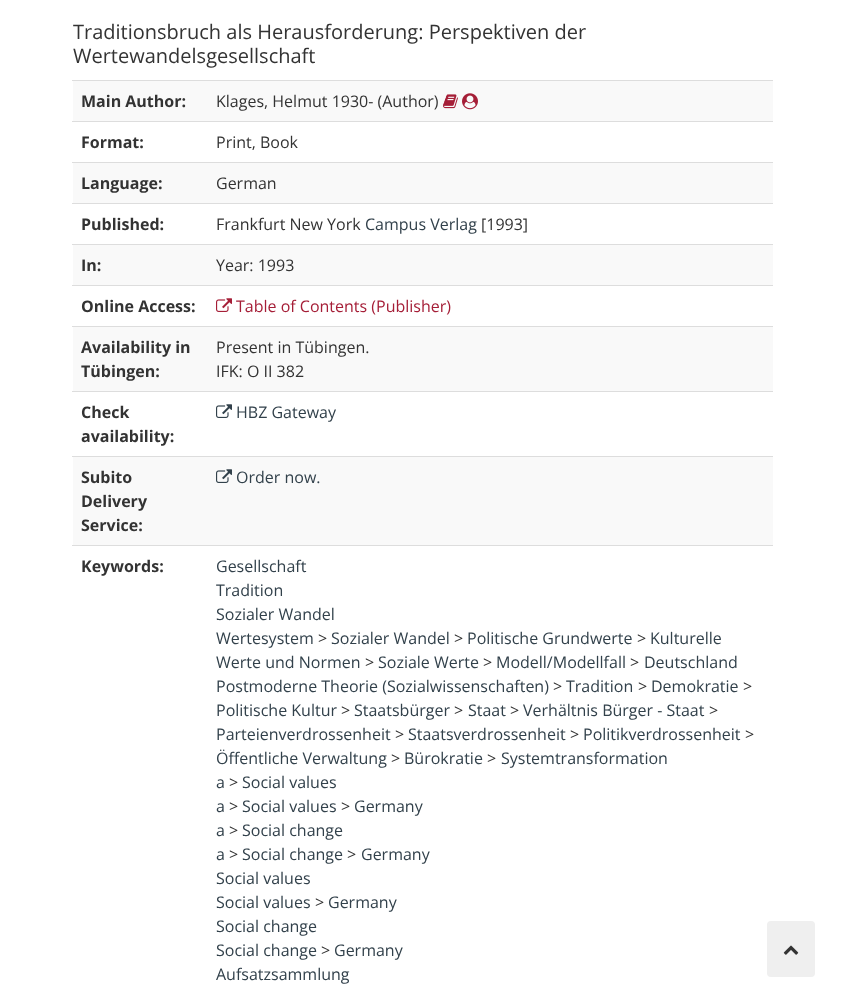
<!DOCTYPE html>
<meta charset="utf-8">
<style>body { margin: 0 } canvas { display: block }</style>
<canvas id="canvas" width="845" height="997"></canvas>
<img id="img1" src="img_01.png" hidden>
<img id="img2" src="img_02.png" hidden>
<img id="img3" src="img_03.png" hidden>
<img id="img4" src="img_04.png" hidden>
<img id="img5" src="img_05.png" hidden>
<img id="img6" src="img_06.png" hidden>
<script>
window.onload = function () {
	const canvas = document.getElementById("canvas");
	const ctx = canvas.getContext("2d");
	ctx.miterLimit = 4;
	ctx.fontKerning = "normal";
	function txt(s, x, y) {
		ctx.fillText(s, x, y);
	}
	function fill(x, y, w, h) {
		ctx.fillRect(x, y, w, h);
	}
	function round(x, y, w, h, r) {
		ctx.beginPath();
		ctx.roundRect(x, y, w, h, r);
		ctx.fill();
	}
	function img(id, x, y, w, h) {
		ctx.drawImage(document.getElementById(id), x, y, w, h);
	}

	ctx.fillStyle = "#FFFFFF";
	fill(0, 0, 845, 997);
	ctx.fillStyle = "#F9F9F9";
	fill(73, 81, 700, 40);
	ctx.fillStyle = "#DDDDDD";
	fill(72, 80, 701, 1);
	img("img1", 443, 94, 15, 15);
	img("img2", 462, 93, 16, 17);
	fill(72, 121, 701, 1);
	ctx.fillStyle = "#F9F9F9";
	fill(73, 163, 700, 40);
	ctx.fillStyle = "#DDDDDD";
	fill(72, 162, 701, 1);
	fill(72, 203, 701, 1);
	ctx.fillStyle = "#F9F9F9";
	fill(73, 245, 700, 40);
	ctx.fillStyle = "#DDDDDD";
	fill(72, 244, 701, 1);
	fill(72, 285, 701, 1);
	img("img3", 216, 298, 16, 14);
	ctx.fillStyle = "#F9F9F9";
	fill(73, 327, 700, 64);
	ctx.fillStyle = "#DDDDDD";
	fill(72, 326, 701, 1);
	fill(72, 391, 701, 1);
	img("img4", 216, 404, 16, 14);
	ctx.fillStyle = "#F9F9F9";
	fill(73, 457, 700, 88);
	ctx.fillStyle = "#DDDDDD";
	fill(72, 456, 701, 1);
	img("img5", 216, 469, 16, 14);
	fill(72, 545, 701, 1);
	ctx.fillStyle = "#EFEFEF";
	round(767, 921, 48, 56, 4);
	img("img6", 783, 945, 16, 10);
	ctx.font = "20px Open Sans";
	ctx.fillStyle = "#333333";
	txt("Traditionsbruch als Herausforderung: Perspektiven der", 73, 39);
	txt("Wertewandelsgesellschaft", 73, 63);
	ctx.font = "bold 16px Open Sans";
	txt("Main Author:", 81, 107);
	ctx.font = "16px Open Sans";
	txt("Klages, Helmut 1930- (Author)", 216, 107);
	ctx.font = "bold 16px Open Sans";
	txt("Format:", 81, 148);
	ctx.font = "16px Open Sans";
	txt("Print, Book", 216, 148);
	ctx.font = "bold 16px Open Sans";
	txt("Language:", 81, 189);
	ctx.font = "16px Open Sans";
	txt("German", 216, 189);
	ctx.font = "bold 16px Open Sans";
	txt("Published:", 81, 230);
	ctx.font = "16px Open Sans";
	txt("Frankfurt New York", 216, 230);
	ctx.fillStyle = "#32414B";
	txt("Campus Verlag", 365, 230);
	ctx.fillStyle = "#333333";
	txt("[1993]", 481, 230);
	ctx.font = "bold 16px Open Sans";
	txt("In:", 81, 271);
	ctx.font = "16px Open Sans";
	txt("Year: 1993", 216, 271);
	ctx.font = "bold 16px Open Sans";
	txt("Online Access:", 81, 312);
	ctx.font = "16px Open Sans";
	ctx.fillStyle = "#A51E37";
	txt("Table of Contents (Publisher)", 236, 312);
	ctx.font = "bold 16px Open Sans";
	ctx.fillStyle = "#333333";
	txt("Availability in", 81, 353);
	txt("Tübingen:", 81, 377);
	ctx.font = "16px Open Sans";
	txt("Present in Tübingen.", 216, 353);
	txt("IFK: O II 382", 216, 377);
	ctx.font = "bold 16px Open Sans";
	txt("Check", 81, 418);
	txt("availability:", 81, 442);
	ctx.font = "16px Open Sans";
	ctx.fillStyle = "#32414B";
	txt("HBZ Gateway", 236, 418);
	ctx.font = "bold 16px Open Sans";
	ctx.fillStyle = "#333333";
	txt("Subito", 81, 483);
	txt("Delivery", 81, 507);
	txt("Service:", 81, 531);
	ctx.font = "16px Open Sans";
	ctx.fillStyle = "#32414B";
	txt("Order now.", 236, 483);
	ctx.font = "bold 16px Open Sans";
	ctx.fillStyle = "#333333";
	txt("Keywords:", 81, 572);
	ctx.font = "16px Open Sans";
	ctx.fillStyle = "#32414B";
	txt("Gesellschaft", 216, 572);
	txt("Tradition", 216, 596);
	txt("Sozialer Wandel", 216, 620);
	txt("Wertesystem", 216, 644);
	ctx.fillStyle = "#333333";
	txt(">", 318, 644);
	ctx.fillStyle = "#32414B";
	txt("Sozialer Wandel", 331, 644);
	ctx.fillStyle = "#333333";
	txt(">", 454, 644);
	ctx.fillStyle = "#32414B";
	txt("Politische Grundwerte", 467, 644);
	ctx.fillStyle = "#333333";
	txt(">", 637, 644);
	ctx.fillStyle = "#32414B";
	txt("Kulturelle", 650, 644);
	txt("Werte und Normen", 216, 668);
	ctx.fillStyle = "#333333";
	txt(">", 365, 668);
	ctx.fillStyle = "#32414B";
	txt("Soziale Werte", 378, 668);
	ctx.fillStyle = "#333333";
	txt(">", 483, 668);
	ctx.fillStyle = "#32414B";
	txt("Modell/Modellfall", 496, 668);
	ctx.fillStyle = "#333333";
	txt(">", 630, 668);
	ctx.fillStyle = "#32414B";
	txt("Deutschland", 644, 668);
	txt("Postmoderne Theorie (Sozialwissenschaften)", 216, 692);
	ctx.fillStyle = "#333333";
	txt(">", 553, 692);
	ctx.fillStyle = "#32414B";
	txt("Tradition", 566, 692);
	ctx.fillStyle = "#333333";
	txt(">", 638, 692);
	ctx.fillStyle = "#32414B";
	txt("Demokratie", 651, 692);
	ctx.fillStyle = "#333333";
	txt(">", 743, 692);
	ctx.fillStyle = "#32414B";
	txt("Politische Kultur", 216, 716);
	ctx.fillStyle = "#333333";
	txt(">", 341, 716);
	ctx.fillStyle = "#32414B";
	txt("Staatsbürger", 354, 716);
	ctx.fillStyle = "#333333";
	txt(">", 454, 716);
	ctx.fillStyle = "#32414B";
	txt("Staat", 468, 716);
	ctx.fillStyle = "#333333";
	txt(">", 510, 716);
	ctx.fillStyle = "#32414B";
	txt("Verhältnis Bürger - Staat", 523, 716);
	ctx.fillStyle = "#333333";
	txt(">", 709, 716);
	ctx.fillStyle = "#32414B";
	txt("Parteienverdrossenheit", 216, 740);
	ctx.fillStyle = "#333333";
	txt(">", 395, 740);
	ctx.fillStyle = "#32414B";
	txt("Staatsverdrossenheit", 408, 740);
	ctx.fillStyle = "#333333";
	txt(">", 570, 740);
	ctx.fillStyle = "#32414B";
	txt("Politikverdrossenheit", 583, 740);
	ctx.fillStyle = "#333333";
	txt(">", 745, 740);
	ctx.fillStyle = "#32414B";
	txt("Öffentliche Verwaltung", 216, 764);
	ctx.fillStyle = "#333333";
	txt(">", 391, 764);
	ctx.fillStyle = "#32414B";
	txt("Bürokratie", 404, 764);
	ctx.fillStyle = "#333333";
	txt(">", 487, 764);
	ctx.fillStyle = "#32414B";
	txt("Systemtransformation", 501, 764);
	txt("a", 216, 788);
	ctx.fillStyle = "#333333";
	txt(">", 229, 788);
	ctx.fillStyle = "#32414B";
	txt("Social values", 242, 788);
	txt("a", 216, 812);
	ctx.fillStyle = "#333333";
	txt(">", 229, 812);
	ctx.fillStyle = "#32414B";
	txt("Social values", 242, 812);
	ctx.fillStyle = "#333333";
	txt(">", 341, 812);
	ctx.fillStyle = "#32414B";
	txt("Germany", 354, 812);
	txt("a", 216, 836);
	ctx.fillStyle = "#333333";
	txt(">", 229, 836);
	ctx.fillStyle = "#32414B";
	txt("Social change", 242, 836);
	txt("a", 216, 860);
	ctx.fillStyle = "#333333";
	txt(">", 229, 860);
	ctx.fillStyle = "#32414B";
	txt("Social change", 242, 860);
	ctx.fillStyle = "#333333";
	txt(">", 347, 860);
	ctx.fillStyle = "#32414B";
	txt("Germany", 361, 860);
	txt("Social values", 216, 884);
	txt("Social values", 216, 908);
	ctx.fillStyle = "#333333";
	txt(">", 315, 908);
	ctx.fillStyle = "#32414B";
	txt("Germany", 328, 908);
	txt("Social change", 216, 932);
	txt("Social change", 216, 956);
	ctx.fillStyle = "#333333";
	txt(">", 321, 956);
	ctx.fillStyle = "#32414B";
	txt("Germany", 334, 956);
	txt("Aufsatzsammlung", 216, 980);
};
</script>
